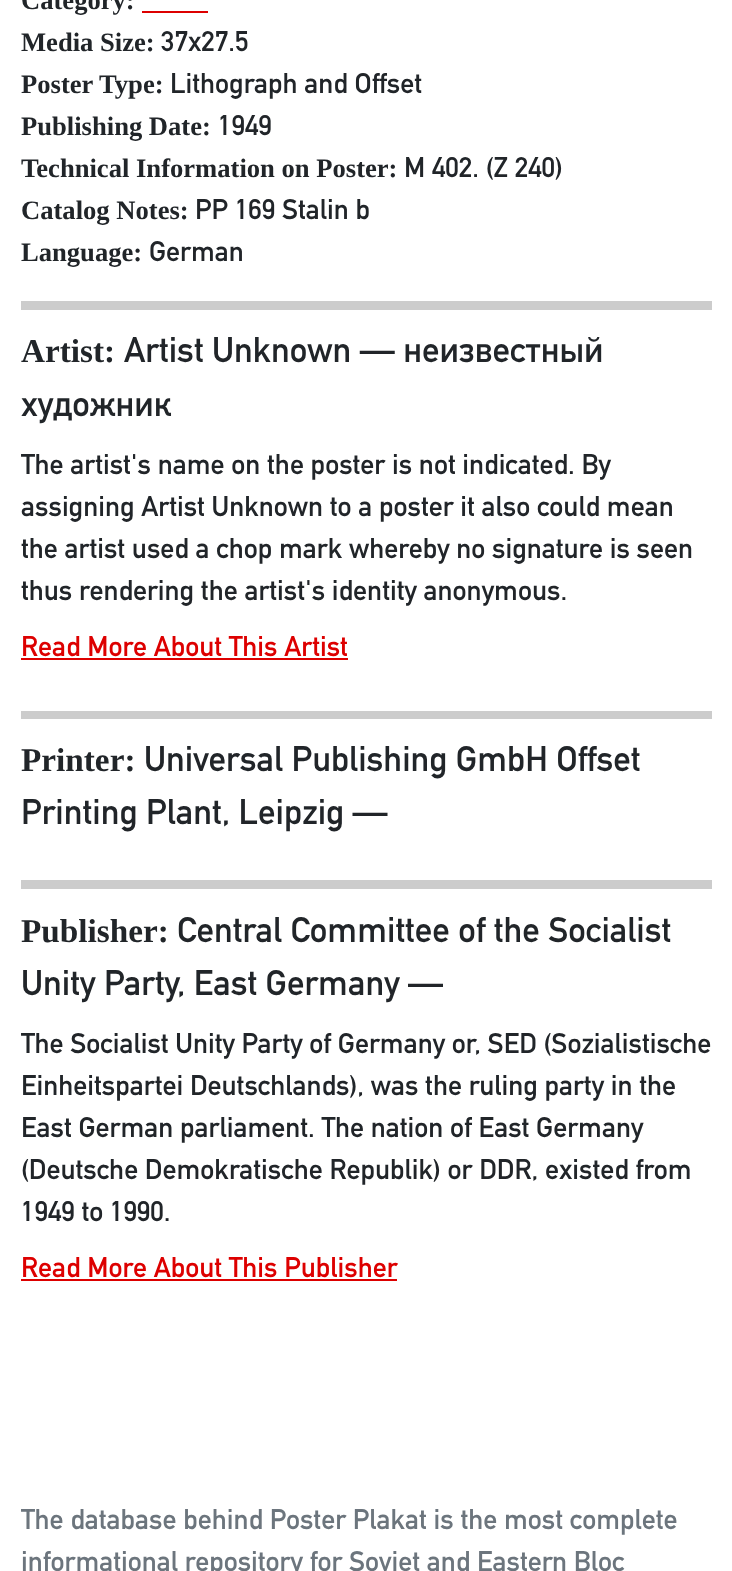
<!DOCTYPE html>
<meta charset="utf-8">
<style>body { margin: 0 } canvas { display: block }</style>
<canvas id="canvas" width="732" height="1571"></canvas>
<script>
window.onload = function () {
	const canvas = document.getElementById("canvas");
	const ctx = canvas.getContext("2d");
	ctx.miterLimit = 4;
	ctx.fontKerning = "normal";
	function txt(s, x, y) {
		ctx.fillText(s, x, y);
	}
	function fill(x, y, w, h) {
		ctx.fillRect(x, y, w, h);
	}

	ctx.fillStyle = "#FFFFFF";
	fill(0, 0, 732, 1571);
	ctx.fillStyle = "#DD0000";
	fill(142, 11, 66, 2);
	ctx.fillStyle = "#CCCCCC";
	fill(21, 301, 691, 9);
	ctx.fillStyle = "#DD0000";
	fill(21, 658, 327, 2);
	ctx.fillStyle = "#CCCCCC";
	fill(21, 711, 691, 8);
	fill(21, 880, 691, 9);
	ctx.fillStyle = "#DD0000";
	fill(21, 1279, 376, 2);
	ctx.font = "bold 26.6px Liberation Serif";
	ctx.fillStyle = "#212529";
	txt("Category:", 21, 9);
	txt("Media Size:", 21, 51);
	ctx.font = "bold 28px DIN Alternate";
	txt("37x27.5", 161, 51);
	ctx.font = "bold 26.6px Liberation Serif";
	txt("Poster Type:", 21, 93);
	ctx.font = "bold 28px DIN Alternate";
	txt("Lithograph and Offset", 170, 93);
	ctx.font = "bold 26.6px Liberation Serif";
	txt("Publishing Date:", 21, 135);
	ctx.font = "bold 28px DIN Alternate";
	txt("1949", 218, 135);
	ctx.font = "bold 26.6px Liberation Serif";
	txt("Technical Information on Poster:", 21, 177);
	ctx.font = "bold 28px DIN Alternate";
	txt("M 402. (Z 240)", 404, 177);
	ctx.font = "bold 26.6px Liberation Serif";
	txt("Catalog Notes:", 21, 219);
	ctx.font = "bold 28px DIN Alternate";
	txt("PP 169 Stalin b", 195, 219);
	ctx.font = "bold 26.6px Liberation Serif";
	txt("Language:", 21, 261);
	ctx.font = "bold 28px DIN Alternate";
	txt("German", 149, 261);
	ctx.font = "bold 33.25px Liberation Serif";
	txt("Artist:", 21, 362);
	ctx.font = "bold 35px DIN Alternate";
	txt("Artist Unknown — неизвестный", 124, 362);
	txt("художник", 21, 416);
	ctx.font = "bold 28px DIN Alternate";
	txt("The artist's name on the poster is not indicated. By", 21, 474);
	txt("assigning Artist Unknown to a poster it also could mean", 21, 516);
	txt("the artist used a chop mark whereby no signature is seen", 21, 558);
	txt("thus rendering the artist's identity anonymous.", 21, 600);
	ctx.fillStyle = "#DD0000";
	txt("Read More About This Artist", 21, 656);
	ctx.font = "bold 33.25px Liberation Serif";
	ctx.fillStyle = "#212529";
	txt("Printer:", 21, 771);
	ctx.font = "bold 35px DIN Alternate";
	txt("Universal Publishing GmbH Offset", 144, 771);
	txt("Printing Plant, Leipzig —", 21, 824);
	ctx.font = "bold 33.25px Liberation Serif";
	txt("Publisher:", 21, 942);
	ctx.font = "bold 35px DIN Alternate";
	txt("Central Committee of the Socialist", 177, 942);
	txt("Unity Party, East Germany —", 21, 995);
	ctx.font = "bold 28px DIN Alternate";
	txt("The Socialist Unity Party of Germany or, SED (Sozialistische", 21, 1053);
	txt("Einheitspartei Deutschlands), was the ruling party in the", 21, 1095);
	txt("East German parliament. The nation of East Germany", 21, 1137);
	txt("(Deutsche Demokratische Republik) or DDR, existed from", 21, 1179);
	txt("1949 to 1990.", 21, 1221);
	ctx.fillStyle = "#DD0000";
	txt("Read More About This Publisher", 21, 1277);
	ctx.fillStyle = "#6C757D";
	txt("The database behind Poster Plakat is the most complete", 21, 1529);
	txt("informational repository for Soviet and Eastern Bloc", 21, 1571);
};
</script>
